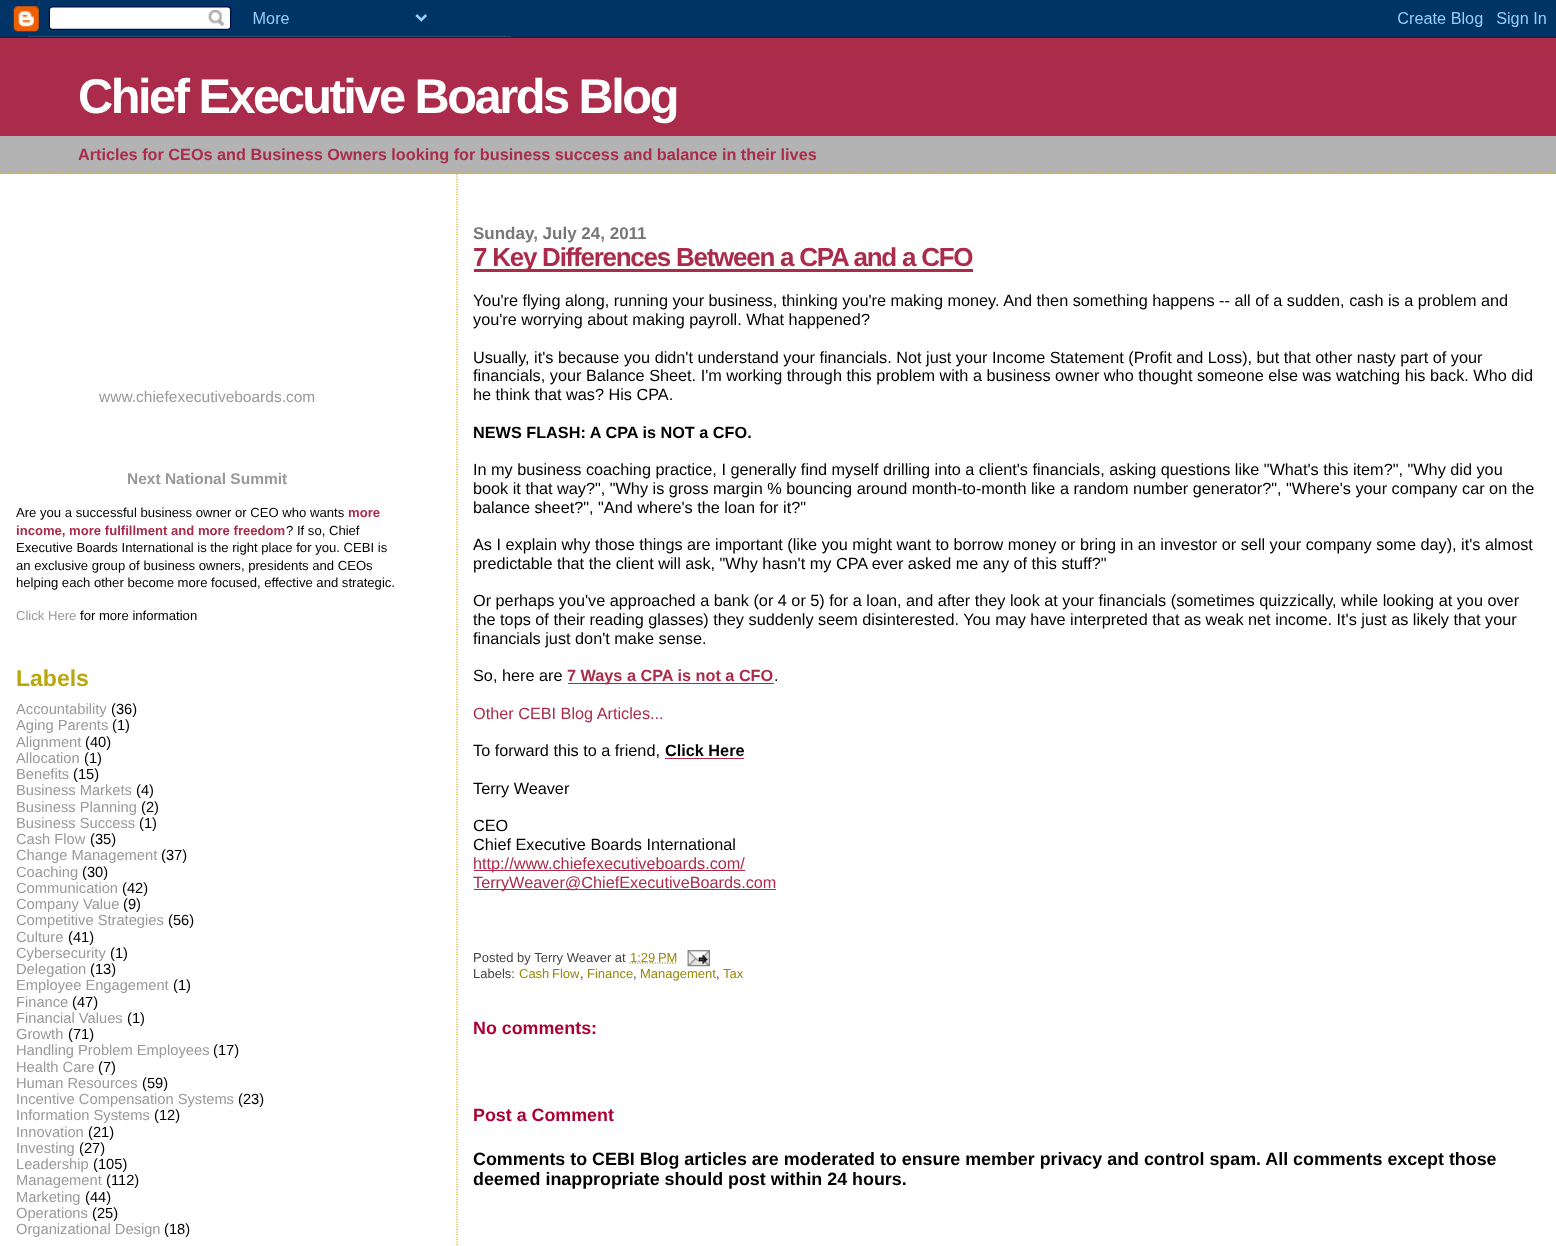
<!DOCTYPE html>
<meta charset="utf-8">
<style>body { margin: 0 } canvas { display: block }</style>
<canvas id="canvas" width="1556" height="1246"></canvas>
<img id="img1" src="img_01.png" hidden>
<img id="img2" src="img_02.png" hidden>
<script>
window.onload = function () {
	const canvas = document.getElementById("canvas");
	const ctx = canvas.getContext("2d");
	ctx.miterLimit = 4;
	ctx.fontKerning = "normal";
	function txt(s, x, y) {
		ctx.fillText(s, x, y);
	}
	function fill(x, y, w, h) {
		ctx.fillRect(x, y, w, h);
	}
	function img(id, x, y, w, h) {
		ctx.drawImage(document.getElementById(id), x, y, w, h);
	}

	ctx.fillStyle = "#FFFFFF";
	fill(0, 0, 1556, 1246);
	img("img1", 0, 0, 1556, 38);
	ctx.fillStyle = "#B3B3B3";
	fill(0, 136, 1556, 38);
	ctx.beginPath();
	ctx.moveTo(0, 173);
	ctx.lineTo(1556, 173);
	ctx.strokeStyle = "#E0AD12";
	ctx.lineWidth = 1.2;
	ctx.setLineDash([1.25, 1.25]);
	ctx.stroke();
	ctx.fillStyle = "#AA2B4A";
	fill(0, 38, 1556, 98);
	ctx.beginPath();
	ctx.moveTo(457, 174);
	ctx.lineTo(457, 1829);
	ctx.stroke();
	fill(474, 269, 499, 3);
	fill(568, 683, 206, 1);
	fill(665, 758, 79, 1);
	fill(474, 870, 271, 1);
	fill(474, 889, 302, 1);
	ctx.beginPath();
	ctx.moveTo(629.5, 963);
	ctx.lineTo(677, 963);
	ctx.strokeStyle = "#968A0A";
	ctx.stroke();
	img("img2", 687, 950, 23, 17);
	ctx.letterSpacing = "-2.5px";
	ctx.font = "bold 48.75px Liberation Sans";
	ctx.fillStyle = "#FFFFFF";
	txt("Chief Executive Boards Blog", 78, 113);
	ctx.letterSpacing = "0px";
	ctx.font = "bold 16.25px Liberation Sans";
	ctx.fillStyle = "#AA2B4A";
	txt("Articles for CEOs and Business Owners looking for business success and balance in their lives", 78, 160);
	ctx.font = "15.5px Liberation Sans";
	ctx.fillStyle = "#999999";
	txt("www.chiefexecutiveboards.com", 99, 402);
	ctx.font = "bold 15.5px Liberation Sans";
	txt("Next National Summit", 127, 484);
	ctx.font = "13.1px Liberation Sans";
	ctx.fillStyle = "#000000";
	txt("Are you a successful business owner or CEO who wants", 16, 517);
	ctx.font = "bold 13.1px Liberation Sans";
	ctx.fillStyle = "#AA2B4A";
	txt("more", 348, 517);
	txt("income, more fulfillment and more freedom", 16, 535);
	ctx.font = "13.1px Liberation Sans";
	ctx.fillStyle = "#000000";
	txt("? If so, Chief", 286, 535);
	txt("Executive Boards International is the right place for you. CEBI is", 16, 552);
	txt("an exclusive group of business owners, presidents and CEOs", 16, 570);
	txt("helping each other become more focused, effective and strategic.", 16, 587);
	ctx.fillStyle = "#999999";
	txt("Click Here", 16, 620);
	ctx.fillStyle = "#000000";
	txt("for more information", 80, 620);
	ctx.font = "bold 23px Liberation Sans";
	ctx.fillStyle = "#B8A80D";
	txt("Labels", 16, 686);
	ctx.font = "14.7px Liberation Sans";
	ctx.fillStyle = "#999999";
	txt("Accountability", 16, 714);
	ctx.fillStyle = "#000000";
	txt("(36)", 111, 714);
	ctx.fillStyle = "#999999";
	txt("Aging Parents", 16, 730);
	ctx.fillStyle = "#000000";
	txt("(1)", 112, 730);
	ctx.fillStyle = "#999999";
	txt("Alignment", 16, 747);
	ctx.fillStyle = "#000000";
	txt("(40)", 85, 747);
	ctx.fillStyle = "#999999";
	txt("Allocation", 16, 763);
	ctx.fillStyle = "#000000";
	txt("(1)", 84, 763);
	ctx.fillStyle = "#999999";
	txt("Benefits", 16, 779);
	ctx.fillStyle = "#000000";
	txt("(15)", 73, 779);
	ctx.fillStyle = "#999999";
	txt("Business Markets", 16, 795);
	ctx.fillStyle = "#000000";
	txt("(4)", 136, 795);
	ctx.fillStyle = "#999999";
	txt("Business Planning", 16, 812);
	ctx.fillStyle = "#000000";
	txt("(2)", 141, 812);
	ctx.fillStyle = "#999999";
	txt("Business Success", 16, 828);
	ctx.fillStyle = "#000000";
	txt("(1)", 139, 828);
	ctx.fillStyle = "#999999";
	txt("Cash Flow", 16, 844);
	ctx.fillStyle = "#000000";
	txt("(35)", 90, 844);
	ctx.fillStyle = "#999999";
	txt("Change Management", 16, 860);
	ctx.fillStyle = "#000000";
	txt("(37)", 161, 860);
	ctx.fillStyle = "#999999";
	txt("Coaching", 16, 877);
	ctx.fillStyle = "#000000";
	txt("(30)", 82, 877);
	ctx.fillStyle = "#999999";
	txt("Communication", 16, 893);
	ctx.fillStyle = "#000000";
	txt("(42)", 122, 893);
	ctx.fillStyle = "#999999";
	txt("Company Value", 16, 909);
	ctx.fillStyle = "#000000";
	txt("(9)", 123, 909);
	ctx.fillStyle = "#999999";
	txt("Competitive Strategies", 16, 925);
	ctx.fillStyle = "#000000";
	txt("(56)", 168, 925);
	ctx.fillStyle = "#999999";
	txt("Culture", 16, 942);
	ctx.fillStyle = "#000000";
	txt("(41)", 68, 942);
	ctx.fillStyle = "#999999";
	txt("Cybersecurity", 16, 958);
	ctx.fillStyle = "#000000";
	txt("(1)", 110, 958);
	ctx.fillStyle = "#999999";
	txt("Delegation", 16, 974);
	ctx.fillStyle = "#000000";
	txt("(13)", 90, 974);
	ctx.fillStyle = "#999999";
	txt("Employee Engagement", 16, 990);
	ctx.fillStyle = "#000000";
	txt("(1)", 173, 990);
	ctx.fillStyle = "#999999";
	txt("Finance", 16, 1007);
	ctx.fillStyle = "#000000";
	txt("(47)", 72, 1007);
	ctx.fillStyle = "#999999";
	txt("Financial Values", 16, 1023);
	ctx.fillStyle = "#000000";
	txt("(1)", 127, 1023);
	ctx.fillStyle = "#999999";
	txt("Growth", 16, 1039);
	ctx.fillStyle = "#000000";
	txt("(71)", 68, 1039);
	ctx.fillStyle = "#999999";
	txt("Handling Problem Employees", 16, 1055);
	ctx.fillStyle = "#000000";
	txt("(17)", 213, 1055);
	ctx.fillStyle = "#999999";
	txt("Health Care", 16, 1072);
	ctx.fillStyle = "#000000";
	txt("(7)", 98, 1072);
	ctx.fillStyle = "#999999";
	txt("Human Resources", 16, 1088);
	ctx.fillStyle = "#000000";
	txt("(59)", 142, 1088);
	ctx.fillStyle = "#999999";
	txt("Incentive Compensation Systems", 16, 1104);
	ctx.fillStyle = "#000000";
	txt("(23)", 238, 1104);
	ctx.fillStyle = "#999999";
	txt("Information Systems", 16, 1120);
	ctx.fillStyle = "#000000";
	txt("(12)", 154, 1120);
	ctx.fillStyle = "#999999";
	txt("Innovation", 16, 1137);
	ctx.fillStyle = "#000000";
	txt("(21)", 88, 1137);
	ctx.fillStyle = "#999999";
	txt("Investing", 16, 1153);
	ctx.fillStyle = "#000000";
	txt("(27)", 79, 1153);
	ctx.fillStyle = "#999999";
	txt("Leadership", 16, 1169);
	ctx.fillStyle = "#000000";
	txt("(105)", 93, 1169);
	ctx.fillStyle = "#999999";
	txt("Management", 16, 1185);
	ctx.fillStyle = "#000000";
	txt("(112)", 106, 1185);
	ctx.fillStyle = "#999999";
	txt("Marketing", 16, 1202);
	ctx.fillStyle = "#000000";
	txt("(44)", 85, 1202);
	ctx.fillStyle = "#999999";
	txt("Operations", 16, 1218);
	ctx.fillStyle = "#000000";
	txt("(25)", 92, 1218);
	ctx.fillStyle = "#999999";
	txt("Organizational Design", 16, 1234);
	ctx.fillStyle = "#000000";
	txt("(18)", 164, 1234);
	ctx.font = "bold 17px Liberation Sans";
	ctx.fillStyle = "#777777";
	txt("Sunday, July 24, 2011", 473, 239);
	ctx.letterSpacing = "-1.25px";
	ctx.font = "bold 26px Liberation Sans";
	ctx.fillStyle = "#AA2B4A";
	txt("7 Key Differences Between a CPA and a CFO", 473, 266);
	ctx.letterSpacing = "0px";
	ctx.font = "16.25px Liberation Sans";
	ctx.fillStyle = "#000000";
	txt("You're flying along, running your business, thinking you're making money. And then something happens -- all of a sudden, cash is a problem and", 473, 306);
	txt("you're worrying about making payroll. What happened?", 473, 325);
	txt("Usually, it's because you didn't understand your financials. Not just your Income Statement (Profit and Loss), but that other nasty part of your", 473, 363);
	txt("financials, your Balance Sheet. I'm working through this problem with a business owner who thought someone else was watching his back. Who did", 473, 381);
	txt("he think that was? His CPA.", 473, 400);
	ctx.font = "bold 16.25px Liberation Sans";
	txt("NEWS FLASH: A CPA is NOT a CFO.", 473, 438);
	ctx.font = "16.25px Liberation Sans";
	txt("In my business coaching practice, I generally find myself drilling into a client's financials, asking questions like \"What's this item?\", \"Why did you", 473, 475);
	txt("book it that way?\", \"Why is gross margin % bouncing around month-to-month like a random number generator?\", \"Where's your company car on the", 473, 494);
	txt("balance sheet?\", \"And where's the loan for it?\"", 473, 513);
	txt("As I explain why those things are important (like you might want to borrow money or bring in an investor or sell your company some day), it's almost", 473, 550);
	txt("predictable that the client will ask, \"Why hasn't my CPA ever asked me any of this stuff?\"", 473, 569);
	txt("Or perhaps you've approached a bank (or 4 or 5) for a loan, and after they look at your financials (sometimes quizzically, while looking at you over", 473, 606);
	txt("the tops of their reading glasses) they suddenly seem disinterested. You may have interpreted that as weak net income. It's just as likely that your", 473, 625);
	txt("financials just don't make sense.", 473, 644);
	txt("So, here are", 473, 681);
	ctx.font = "bold 16.25px Liberation Sans";
	ctx.fillStyle = "#AA2B4A";
	txt("7 Ways a CPA is not a CFO", 567, 681);
	ctx.font = "16.25px Liberation Sans";
	ctx.fillStyle = "#000000";
	txt(".", 774, 681);
	ctx.fillStyle = "#AA2B4A";
	txt("Other CEBI Blog Articles...", 473, 719);
	ctx.fillStyle = "#000000";
	txt("To forward this to a friend,", 473, 756);
	ctx.font = "bold 16.25px Liberation Sans";
	txt("Click Here", 665, 756);
	ctx.font = "16.25px Liberation Sans";
	txt("Terry Weaver", 473, 794);
	txt("CEO", 473, 831);
	txt("Chief Executive Boards International", 473, 850);
	ctx.fillStyle = "#AA2B4A";
	txt("http://www.chiefexecutiveboards.com/", 473, 869);
	txt("TerryWeaver@ChiefExecutiveBoards.com", 473, 888);
	ctx.font = "13px Liberation Sans";
	ctx.fillStyle = "#444444";
	txt("Posted by Terry Weaver at", 473, 962);
	ctx.fillStyle = "#968A0A";
	txt("1:29 PM", 630, 962);
	ctx.fillStyle = "#444444";
	txt("Labels:", 473, 978);
	ctx.wordSpacing = "-1px";
	ctx.fillStyle = "#968A0A";
	txt("Cash Flow", 519, 978);
	ctx.wordSpacing = "0px";
	ctx.fillStyle = "#444444";
	txt(",", 580, 978);
	ctx.fillStyle = "#968A0A";
	txt("Finance", 587, 978);
	ctx.fillStyle = "#444444";
	txt(",", 633, 978);
	ctx.fillStyle = "#968A0A";
	txt("Management", 640, 978);
	ctx.fillStyle = "#444444";
	txt(",", 716, 978);
	ctx.fillStyle = "#968A0A";
	txt("Tax", 723, 978);
	ctx.font = "bold 17.88px Liberation Sans";
	ctx.fillStyle = "#AA0033";
	txt("No comments:", 473, 1034);
	txt("Post a Comment", 473, 1121);
	ctx.fillStyle = "#000000";
	txt("Comments to CEBI Blog articles are moderated to ensure member privacy and control spam. All comments except those", 473, 1165);
	txt("deemed inappropriate should post within 24 hours.", 473, 1185);
};
</script>
